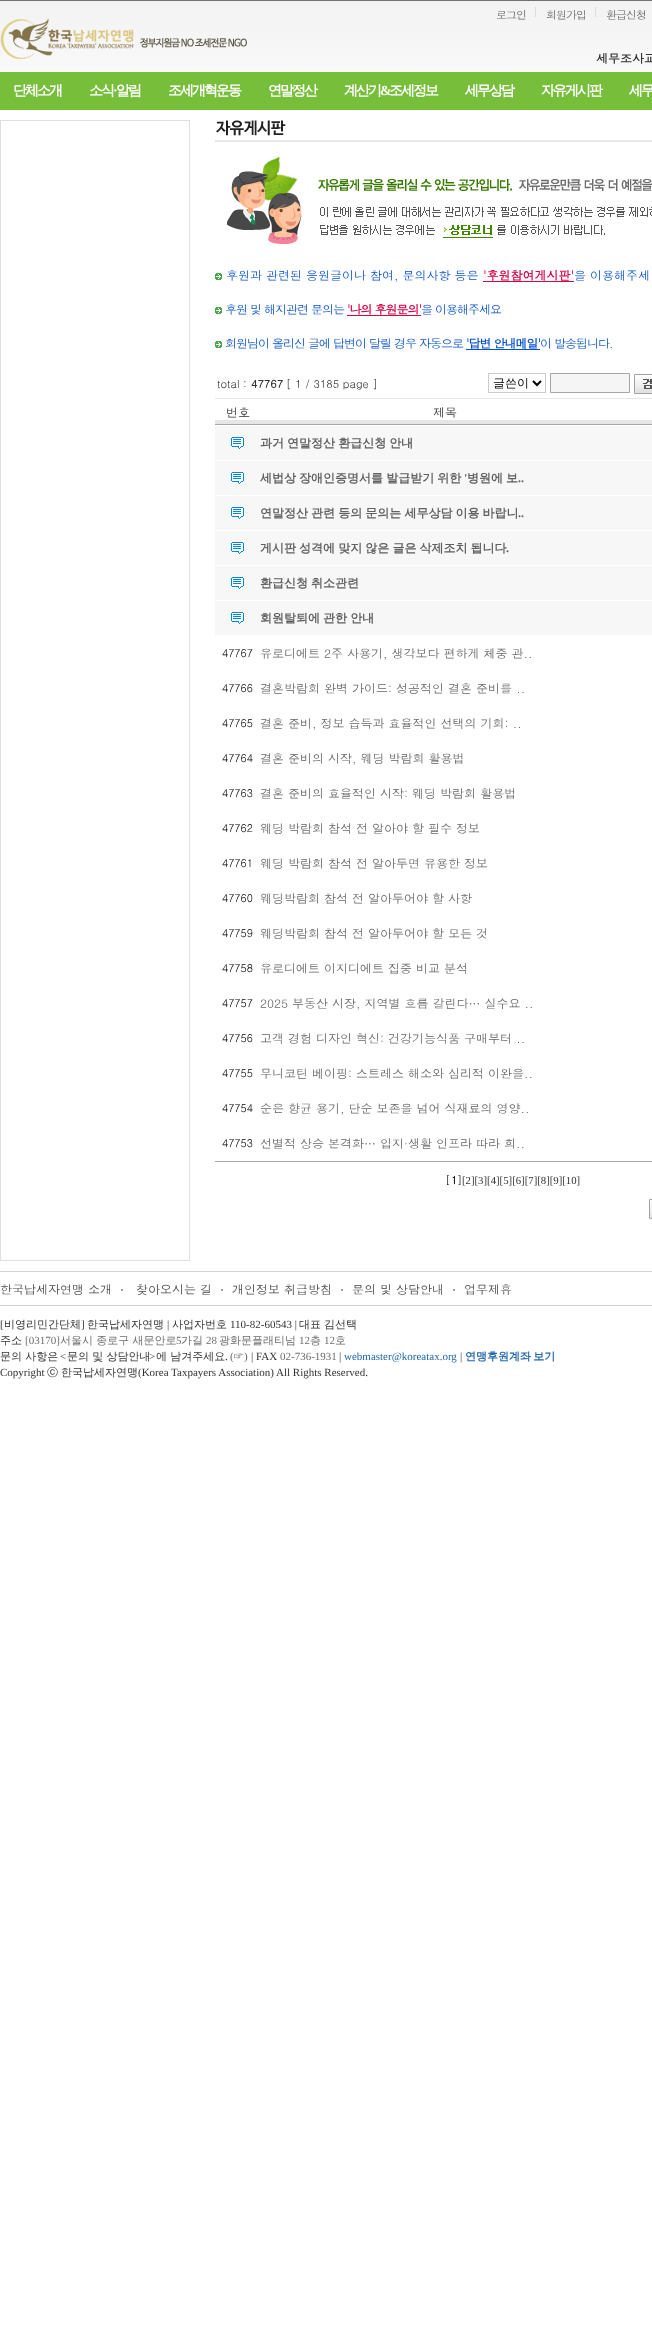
<!DOCTYPE html>
<meta charset="utf-8">
<style>body { margin: 0 } canvas { display: block }</style>
<canvas id="canvas" width="652" height="2337"></canvas>
<img id="img1" src="img_01.png" hidden>
<img id="img2" src="img_02.png" hidden>
<img id="img3" src="img_03.png" hidden>
<img id="img4" src="img_04.png" hidden>
<img id="img5" src="img_05.png" hidden>
<img id="img6" src="img_06.png" hidden>
<img id="img7" src="img_07.png" hidden>
<img id="img8" src="img_08.png" hidden>
<img id="img9" src="img_09.png" hidden>
<img id="img10" src="img_10.png" hidden>
<img id="img11" src="img_11.png" hidden>
<script>
window.onload = function () {
	const canvas = document.getElementById("canvas");
	const ctx = canvas.getContext("2d");
	ctx.miterLimit = 4;
	ctx.fontKerning = "normal";
	function txt(s, x, y) {
		ctx.fillText(s, x, y);
	}
	function fill(x, y, w, h) {
		ctx.fillRect(x, y, w, h);
	}
	function img(id, x, y, w, h) {
		ctx.drawImage(document.getElementById(id), x, y, w, h);
	}

	ctx.fillStyle = "#FFFFFF";
	fill(0, 0, 652, 2337);
	img("img1", 0, 0, 652, 72);
	ctx.fillStyle = "#DDDDDD";
	fill(535, 7, 1, 10);
	fill(595, 7, 1, 10);
	img("img2", 0, 19, 247, 40);
	ctx.fillStyle = "#77BE3B";
	fill(0, 72, 652, 38);
	ctx.strokeStyle = "#DFDFDF";
	ctx.strokeRect(0.5, 120.5, 189, 1140);
	ctx.fillStyle = "#E8E8E8";
	fill(215, 140, 437, 2);
	img("img3", 216, 120, 70, 16);
	img("img4", 227, 157, 425, 87);
	img("img5", 215, 273, 7, 7);
	ctx.fillStyle = "#D40343";
	fill(483, 281, 91, 1);
	img("img5", 215, 307, 7, 7);
	fill(347, 315, 74, 1);
	img("img5", 215, 341, 7, 7);
	ctx.fillStyle = "#0751CB";
	fill(466, 349, 74, 1);
	ctx.strokeStyle = "#CCCCCC";
	ctx.strokeRect(488.5, 373.5, 57, 19);
	ctx.beginPath();
	ctx.moveTo(533, 381);
	ctx.lineTo(537, 385);
	ctx.lineTo(541, 381);
	ctx.strokeStyle = "#000000";
	ctx.lineWidth = 2;
	ctx.stroke();
	ctx.fillStyle = "#F5F5F5";
	ctx.beginPath();
	ctx.rect(550.5, 373.5, 79, 19);
	ctx.fill();
	ctx.strokeStyle = "#A7A7A7";
	ctx.lineWidth = 1;
	ctx.stroke();
	img("img6", 634, 374, 18, 20);
	img("img7", 215, 398, 45, 27);
	img("img8", 260, 398, 370, 27);
	img("img9", 630, 398, 22, 27);
	ctx.fillStyle = "#F7F7F7";
	fill(215, 426, 437, 34);
	img("img10", 231, 437, 13, 12);
	fill(215, 461, 437, 34);
	img("img10", 231, 472, 13, 12);
	fill(215, 496, 437, 34);
	img("img10", 231, 507, 13, 12);
	fill(215, 531, 437, 34);
	img("img10", 231, 542, 13, 12);
	fill(215, 566, 437, 34);
	img("img10", 231, 577, 13, 12);
	fill(215, 601, 437, 34);
	img("img10", 231, 612, 13, 12);
	ctx.fillStyle = "#A7A7A7";
	fill(215, 1161, 437, 1);
	img("img11", 649, 1199, 3, 20);
	ctx.fillStyle = "#D3D3D3";
	fill(0, 1271, 652, 1);
	fill(0, 1305, 652, 1);
	ctx.fillStyle = "#A2A2A2";
	fill(121, 1289, 2, 2);
	fill(221, 1289, 2, 2);
	fill(341, 1289, 2, 2);
	fill(453, 1289, 2, 2);
	ctx.letterSpacing = "-1px";
	ctx.font = "11px Dotum";
	ctx.fillStyle = "#666666";
	txt("로그인", 496, 19);
	txt("회원가입", 546, 19);
	txt("환급신청", 606, 19);
	ctx.letterSpacing = "0px";
	ctx.font = "bold 12px Dotum";
	ctx.fillStyle = "#333333";
	txt("세무조사교", 596, 63);
	ctx.letterSpacing = "-2px";
	ctx.font = "bold 14px WenQuanYi Zen Hei";
	ctx.fillStyle = "#FFFFFF";
	txt("단체소개", 13, 95);
	txt("소식", 89, 95);
	ctx.font = "bold 14px Liberation Serif";
	txt("·", 113, 95);
	ctx.font = "bold 14px WenQuanYi Zen Hei";
	txt("알림", 116, 95);
	txt("조세개혁운동", 168, 95);
	txt("연말정산", 268, 95);
	txt("계산기", 344, 95);
	ctx.font = "bold 14px Liberation Serif";
	txt("&", 380, 95);
	ctx.font = "bold 14px WenQuanYi Zen Hei";
	txt("조세정보", 389, 95);
	txt("세무상담", 465, 95);
	txt("자유게시판", 541, 95);
	txt("세무", 629, 95);
	ctx.letterSpacing = "0px";
	ctx.font = "12px Dotum";
	ctx.fillStyle = "#0751CB";
	txt("후원과 관련된 응원글이나 참여, 문의사항 등은", 226, 280);
	ctx.font = "bold 12px Dotum";
	ctx.fillStyle = "#D40343";
	txt("'후원참여게시판'", 483, 280);
	ctx.font = "12px Dotum";
	ctx.fillStyle = "#0751CB";
	txt("을 이용해주세", 574, 280);
	ctx.letterSpacing = "-1px";
	txt("후원 및 해지관련 문의는", 225, 314);
	ctx.font = "bold 12px Dotum";
	ctx.fillStyle = "#D40343";
	txt("'나의 후원문의'", 347, 314);
	ctx.font = "12px Dotum";
	ctx.fillStyle = "#0751CB";
	txt("을 이용해주세요", 421, 314);
	txt("회원님이 올리신 글에 답변이 달릴 경우 자동으로", 225, 348);
	ctx.font = "bold 12px Dotum";
	txt("'답변 안내메일'", 466, 348);
	ctx.font = "12px Dotum";
	txt("이 발송됩니다.", 540, 348);
	ctx.letterSpacing = "0px";
	ctx.font = "11px Dotum";
	ctx.fillStyle = "#333333";
	txt("total :", 217, 388);
	ctx.font = "bold 11px Dotum";
	txt("47767", 251, 388);
	ctx.font = "11px Dotum";
	txt("[ 1 / 3185 page ]", 286, 388);
	ctx.font = "500 12px WenQuanYi Zen Hei";
	ctx.fillStyle = "#000000";
	txt("글쓴이", 493, 387);
	ctx.font = "12px Dotum";
	ctx.fillStyle = "#333333";
	txt("번호", 226, 417);
	txt("제목", 433, 417);
	ctx.wordSpacing = "-0.5px";
	ctx.font = "bold 12px WenQuanYi Zen Hei";
	ctx.fillStyle = "#606060";
	txt("과거 연말정산 환급신청 안내", 260, 447);
	txt("세법상 장애인증명서를 발급받기 위한", 260, 482);
	ctx.wordSpacing = "0px";
	ctx.font = "bold 12px Liberation Serif";
	txt("'", 464, 482);
	ctx.wordSpacing = "-0.5px";
	ctx.font = "bold 12px WenQuanYi Zen Hei";
	txt("병원에 보", 467, 482);
	ctx.wordSpacing = "0px";
	ctx.font = "bold 12px Liberation Serif";
	txt("..", 518, 482);
	ctx.wordSpacing = "-0.5px";
	ctx.font = "bold 12px WenQuanYi Zen Hei";
	txt("연말정산 관련 등의 문의는 세무상담 이용 바랍니", 260, 517);
	ctx.wordSpacing = "0px";
	ctx.font = "bold 12px Liberation Serif";
	txt("..", 518, 517);
	ctx.wordSpacing = "-0.5px";
	ctx.font = "bold 12px WenQuanYi Zen Hei";
	txt("게시판 성격에 맞지 않은 글은 삭제조치 됩니다", 260, 552);
	ctx.wordSpacing = "0px";
	ctx.font = "bold 12px Liberation Serif";
	txt(".", 506, 552);
	ctx.wordSpacing = "-0.5px";
	ctx.font = "bold 12px WenQuanYi Zen Hei";
	txt("환급신청 취소관련", 260, 587);
	txt("회원탈퇴에 관한 안내", 260, 622);
	ctx.wordSpacing = "0px";
	ctx.font = "10.75px Gulim";
	ctx.fillStyle = "#000000";
	txt("47767", 222, 657);
	ctx.font = "12px Dotum";
	ctx.fillStyle = "#666666";
	txt("유로디에트 2주 사용기, 생각보다 편하게 체중 관..", 260, 658);
	ctx.font = "10.75px Gulim";
	ctx.fillStyle = "#000000";
	txt("47766", 222, 692);
	ctx.font = "12px Dotum";
	ctx.fillStyle = "#666666";
	txt("결혼박람회 완벽 가이드: 성공적인 결혼 준비를 ..", 260, 693);
	ctx.font = "10.75px Gulim";
	ctx.fillStyle = "#000000";
	txt("47765", 222, 727);
	ctx.font = "12px Dotum";
	ctx.fillStyle = "#666666";
	txt("결혼 준비, 정보 습득과 효율적인 선택의 기회: ..", 260, 728);
	ctx.font = "10.75px Gulim";
	ctx.fillStyle = "#000000";
	txt("47764", 222, 762);
	ctx.font = "12px Dotum";
	ctx.fillStyle = "#666666";
	txt("결혼 준비의 시작, 웨딩 박람회 활용법", 260, 763);
	ctx.font = "10.75px Gulim";
	ctx.fillStyle = "#000000";
	txt("47763", 222, 797);
	ctx.font = "12px Dotum";
	ctx.fillStyle = "#666666";
	txt("결혼 준비의 효율적인 시작: 웨딩 박람회 활용법", 260, 798);
	ctx.font = "10.75px Gulim";
	ctx.fillStyle = "#000000";
	txt("47762", 222, 832);
	ctx.font = "12px Dotum";
	ctx.fillStyle = "#666666";
	txt("웨딩 박람회 참석 전 알아야 할 필수 정보", 260, 833);
	ctx.font = "10.75px Gulim";
	ctx.fillStyle = "#000000";
	txt("47761", 222, 867);
	ctx.font = "12px Dotum";
	ctx.fillStyle = "#666666";
	txt("웨딩 박람회 참석 전 알아두면 유용한 정보", 260, 868);
	ctx.font = "10.75px Gulim";
	ctx.fillStyle = "#000000";
	txt("47760", 222, 902);
	ctx.font = "12px Dotum";
	ctx.fillStyle = "#666666";
	txt("웨딩박람회 참석 전 알아두어야 할 사항", 260, 903);
	ctx.font = "10.75px Gulim";
	ctx.fillStyle = "#000000";
	txt("47759", 222, 937);
	ctx.font = "12px Dotum";
	ctx.fillStyle = "#666666";
	txt("웨딩박람회 참석 전 알아두어야 할 모든 것", 260, 938);
	ctx.font = "10.75px Gulim";
	ctx.fillStyle = "#000000";
	txt("47758", 222, 972);
	ctx.font = "12px Dotum";
	ctx.fillStyle = "#666666";
	txt("유로디에트 이지디에트 집중 비교 분석", 260, 973);
	ctx.font = "10.75px Gulim";
	ctx.fillStyle = "#000000";
	txt("47757", 222, 1007);
	ctx.font = "12px Dotum";
	ctx.fillStyle = "#666666";
	txt("2025 부동산 시장, 지역별 흐름 갈린다… 실수요 ..", 260, 1008);
	ctx.font = "10.75px Gulim";
	ctx.fillStyle = "#000000";
	txt("47756", 222, 1042);
	ctx.font = "12px Dotum";
	ctx.fillStyle = "#666666";
	txt("고객 경험 디자인 혁신: 건강기능식품 구매부터 ..", 260, 1043);
	ctx.font = "10.75px Gulim";
	ctx.fillStyle = "#000000";
	txt("47755", 222, 1077);
	ctx.font = "12px Dotum";
	ctx.fillStyle = "#666666";
	txt("무니코틴 베이핑: 스트레스 해소와 심리적 이완을..", 260, 1078);
	ctx.font = "10.75px Gulim";
	ctx.fillStyle = "#000000";
	txt("47754", 222, 1112);
	ctx.font = "12px Dotum";
	ctx.fillStyle = "#666666";
	txt("순은 향균 용기, 단순 보존을 넘어 식재료의 영양..", 260, 1113);
	ctx.font = "10.75px Gulim";
	ctx.fillStyle = "#000000";
	txt("47753", 222, 1147);
	ctx.font = "12px Dotum";
	ctx.fillStyle = "#666666";
	txt("선별적 상승 본격화… 입지·생활 인프라 따라 희..", 260, 1148);
	ctx.font = "10.75px Gulim";
	ctx.fillStyle = "#000000";
	txt("[", 445, 1184);
	ctx.font = "bold 10.75px Gulim";
	txt("1", 451, 1184);
	ctx.font = "10.75px Gulim";
	txt("]", 457, 1184);
	ctx.font = "10.75px Liberation Serif";
	ctx.fillStyle = "#333333";
	txt("[2][3][4][5][6][7][8][9][10]", 462, 1184);
	ctx.font = "12px Dotum";
	ctx.fillStyle = "#464646";
	txt("한국납세자연맹 소개", 0, 1294);
	txt("찾아오시는 길", 136, 1294);
	txt("개인정보 취급방침", 232, 1294);
	txt("문의 및 상담안내", 352, 1294);
	txt("업무제휴", 464, 1294);
	ctx.font = "11px Liberation Serif";
	ctx.fillStyle = "#333333";
	txt("[", 0, 1328);
	ctx.font = "500 11px WenQuanYi Zen Hei";
	txt("비영리민간단체", 4, 1328);
	ctx.font = "11px Liberation Serif";
	txt("]", 81, 1328);
	ctx.font = "500 11px WenQuanYi Zen Hei";
	txt("한국납세자연맹", 87, 1328);
	ctx.font = "11px Liberation Serif";
	txt("|", 167, 1328);
	ctx.font = "500 11px WenQuanYi Zen Hei";
	txt("사업자번호", 172, 1328);
	ctx.font = "11px Liberation Serif";
	txt("110-82-60543 |", 230, 1328);
	ctx.font = "500 11px WenQuanYi Zen Hei";
	txt("대표", 299, 1328);
	txt("김선택", 324, 1328);
	txt("주소", 0, 1344);
	ctx.font = "11px Liberation Serif";
	ctx.fillStyle = "#6E6E6E";
	txt("[03170]", 25, 1344);
	ctx.font = "500 11px WenQuanYi Zen Hei";
	txt("서울시 종로구 새문안로", 60, 1344);
	ctx.font = "11px Liberation Serif";
	txt("5", 176, 1344);
	ctx.font = "500 11px WenQuanYi Zen Hei";
	txt("가길", 181, 1344);
	ctx.font = "11px Liberation Serif";
	txt("28", 206, 1344);
	ctx.font = "500 11px WenQuanYi Zen Hei";
	txt("광화문플래티넘", 219, 1344);
	ctx.font = "11px Liberation Serif";
	txt("12", 299, 1344);
	ctx.font = "500 11px WenQuanYi Zen Hei";
	txt("층", 310, 1344);
	ctx.font = "11px Liberation Serif";
	txt("12", 324, 1344);
	ctx.font = "500 11px WenQuanYi Zen Hei";
	txt("호", 335, 1344);
	ctx.fillStyle = "#333333";
	txt("문의 사항은", 0, 1360);
	ctx.font = "11px Liberation Serif";
	txt("<", 60, 1360);
	ctx.font = "500 11px WenQuanYi Zen Hei";
	txt("문의 및 상담안내", 67, 1360);
	ctx.font = "11px Liberation Serif";
	txt(">", 149, 1360);
	ctx.font = "500 11px WenQuanYi Zen Hei";
	txt("에 남겨주세요", 156, 1360);
	ctx.font = "11px Liberation Serif";
	ctx.fillStyle = "#666666";
	txt("(", 230, 1360);
	ctx.font = "500 11px WenQuanYi Zen Hei";
	txt("☞", 233, 1360);
	ctx.font = "11px Liberation Serif";
	txt(")", 244, 1360);
	ctx.fillStyle = "#333333";
	txt("| FAX", 251, 1360);
	ctx.fillStyle = "#6E6E6E";
	txt("02-736-1931", 280, 1360);
	ctx.fillStyle = "#333333";
	txt("|", 339, 1360);
	ctx.fillStyle = "#2267A8";
	txt("webmaster@koreatax.org", 344, 1360);
	ctx.fillStyle = "#333333";
	txt("|", 460, 1360);
	ctx.wordSpacing = "-1px";
	ctx.font = "bold 11px WenQuanYi Zen Hei";
	ctx.fillStyle = "#2267A8";
	txt("연맹후원계좌 보기", 465, 1360);
	ctx.wordSpacing = "0px";
	ctx.font = "11px Liberation Serif";
	ctx.fillStyle = "#333333";
	txt(".", 225, 1360);
	txt("Copyright", 0, 1376);
	ctx.font = "500 11px WenQuanYi Zen Hei";
	txt("ⓒ", 47, 1376);
	txt("한국납세자연맹", 61, 1376);
	ctx.font = "11px Liberation Serif";
	txt("(Korea Taxpayers Association) All Rights Reserved.", 138, 1376);
};
</script>
